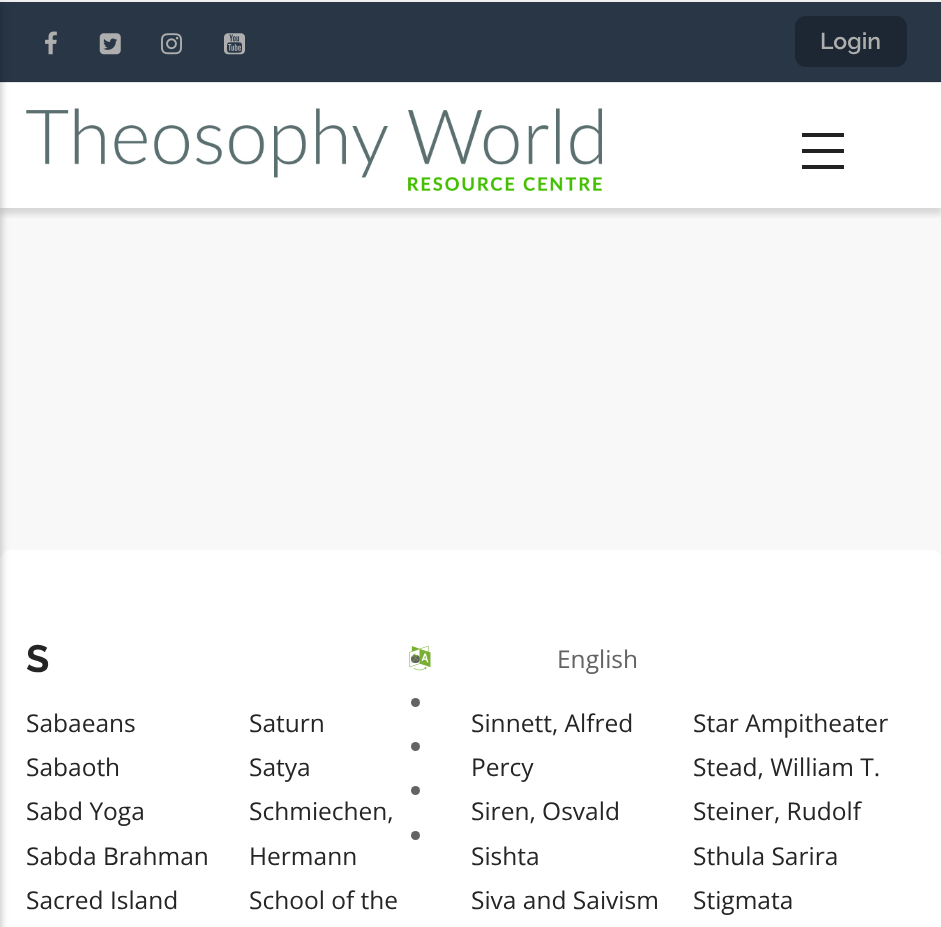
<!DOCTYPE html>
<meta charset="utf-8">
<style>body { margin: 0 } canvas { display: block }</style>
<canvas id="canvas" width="941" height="927"></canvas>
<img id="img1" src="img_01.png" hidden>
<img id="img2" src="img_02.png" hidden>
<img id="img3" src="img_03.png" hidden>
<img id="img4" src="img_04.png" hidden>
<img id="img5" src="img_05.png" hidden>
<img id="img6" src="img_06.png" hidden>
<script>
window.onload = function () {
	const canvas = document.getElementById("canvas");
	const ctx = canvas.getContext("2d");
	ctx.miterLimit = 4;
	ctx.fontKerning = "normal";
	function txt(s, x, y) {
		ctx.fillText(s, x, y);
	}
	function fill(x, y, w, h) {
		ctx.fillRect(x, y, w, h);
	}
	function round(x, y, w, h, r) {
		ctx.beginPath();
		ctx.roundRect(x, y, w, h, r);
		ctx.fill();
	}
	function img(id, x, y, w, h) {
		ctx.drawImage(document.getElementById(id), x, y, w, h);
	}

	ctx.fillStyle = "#EFEFEF";
	fill(0, 0, 941, 927);
	ctx.fillStyle = "#FFFFFF";
	fill(0, 83, 941, 125);
	ctx.fillStyle = "#E6E6E6";
	fill(0, 82, 941, 1);
	ctx.fillStyle = "#F8F8F8";
	fill(0, 208, 941, 353);
	ctx.save();
	ctx.beginPath();
	ctx.rect(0, 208, 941, 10);
	ctx.clip();
	ctx.fillStyle = "rgba(0, 0, 0, 0.14)";
	ctx.filter = "blur(3.5px)";
	ctx.beginPath();
	ctx.rect(0, 7, 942, 207);
	ctx.fill();
	ctx.filter = "none";
	ctx.restore();
	ctx.fillStyle = "#283646";
	fill(0, 2, 941, 79);
	ctx.fillStyle = "#24313F";
	fill(0, 81, 941, 1);
	ctx.fillStyle = "#FFFFFF";
	round(0, 550, 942, 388, 11);
	ctx.fillStyle = "rgba(0, 0, 0, 0.2)";
	ctx.filter = "blur(3.5px)";
	ctx.beginPath();
	ctx.rect(-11, 5, 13, 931);
	ctx.fill();
	ctx.filter = "none";
	ctx.fillStyle = "#222222";
	fill(802, 133, 42, 4);
	fill(802, 149, 42, 4);
	fill(802, 165, 42, 4);
	img("img1", 26, 108, 576, 83);
	img("img2", 45, 31, 12, 24);
	img("img3", 99, 33, 22, 22);
	img("img4", 161, 33, 21, 22);
	img("img5", 224, 33, 21, 22);
	ctx.fillStyle = "#1C2733";
	round(795, 16, 112, 51, 11);
	ctx.fillStyle = "#636363";
	round(411, 655, 9, 8, 4);
	img("img6", 409, 645, 22, 26);
	ctx.beginPath();
	ctx.arc(415.5, 702.5, 4.5, 0, Math.PI * 2);
	ctx.fill();
	ctx.beginPath();
	ctx.arc(415.5, 746.5, 4.5, 0, Math.PI * 2);
	ctx.fill();
	ctx.beginPath();
	ctx.arc(415.5, 790.5, 4.5, 0, Math.PI * 2);
	ctx.fill();
	ctx.beginPath();
	ctx.arc(415.5, 835.5, 4.5, 0, Math.PI * 2);
	ctx.fill();
	ctx.font = "600 23px Raleway";
	ctx.fillStyle = "#AEAEAE";
	txt("Login", 820, 49);
	ctx.font = "bold 38px Raleway";
	ctx.fillStyle = "#252525";
	txt("S", 26, 672);
	ctx.font = "24.5px Open Sans";
	txt("Sabaeans", 26, 732);
	txt("Sabaoth", 26, 776);
	txt("Sabd Yoga", 26, 820);
	txt("Sabda Brahman", 26, 865);
	txt("Sacred Island", 26, 909);
	txt("Saturn", 249, 732);
	txt("Satya", 249, 776);
	txt("Schmiechen,", 249, 820);
	txt("Hermann", 249, 865);
	txt("School of the", 249, 909);
	txt("Sinnett, Alfred", 471, 732);
	txt("Percy", 471, 776);
	txt("Siren, Osvald", 471, 820);
	txt("Sishta", 471, 865);
	txt("Siva and Saivism", 471, 909);
	txt("Star Ampitheater", 693, 732);
	txt("Stead, William T.", 693, 776);
	txt("Steiner, Rudolf", 693, 820);
	txt("Sthula Sarira", 693, 865);
	txt("Stigmata", 693, 909);
	ctx.fillStyle = "#636363";
	txt("English", 557, 668);
};
</script>
